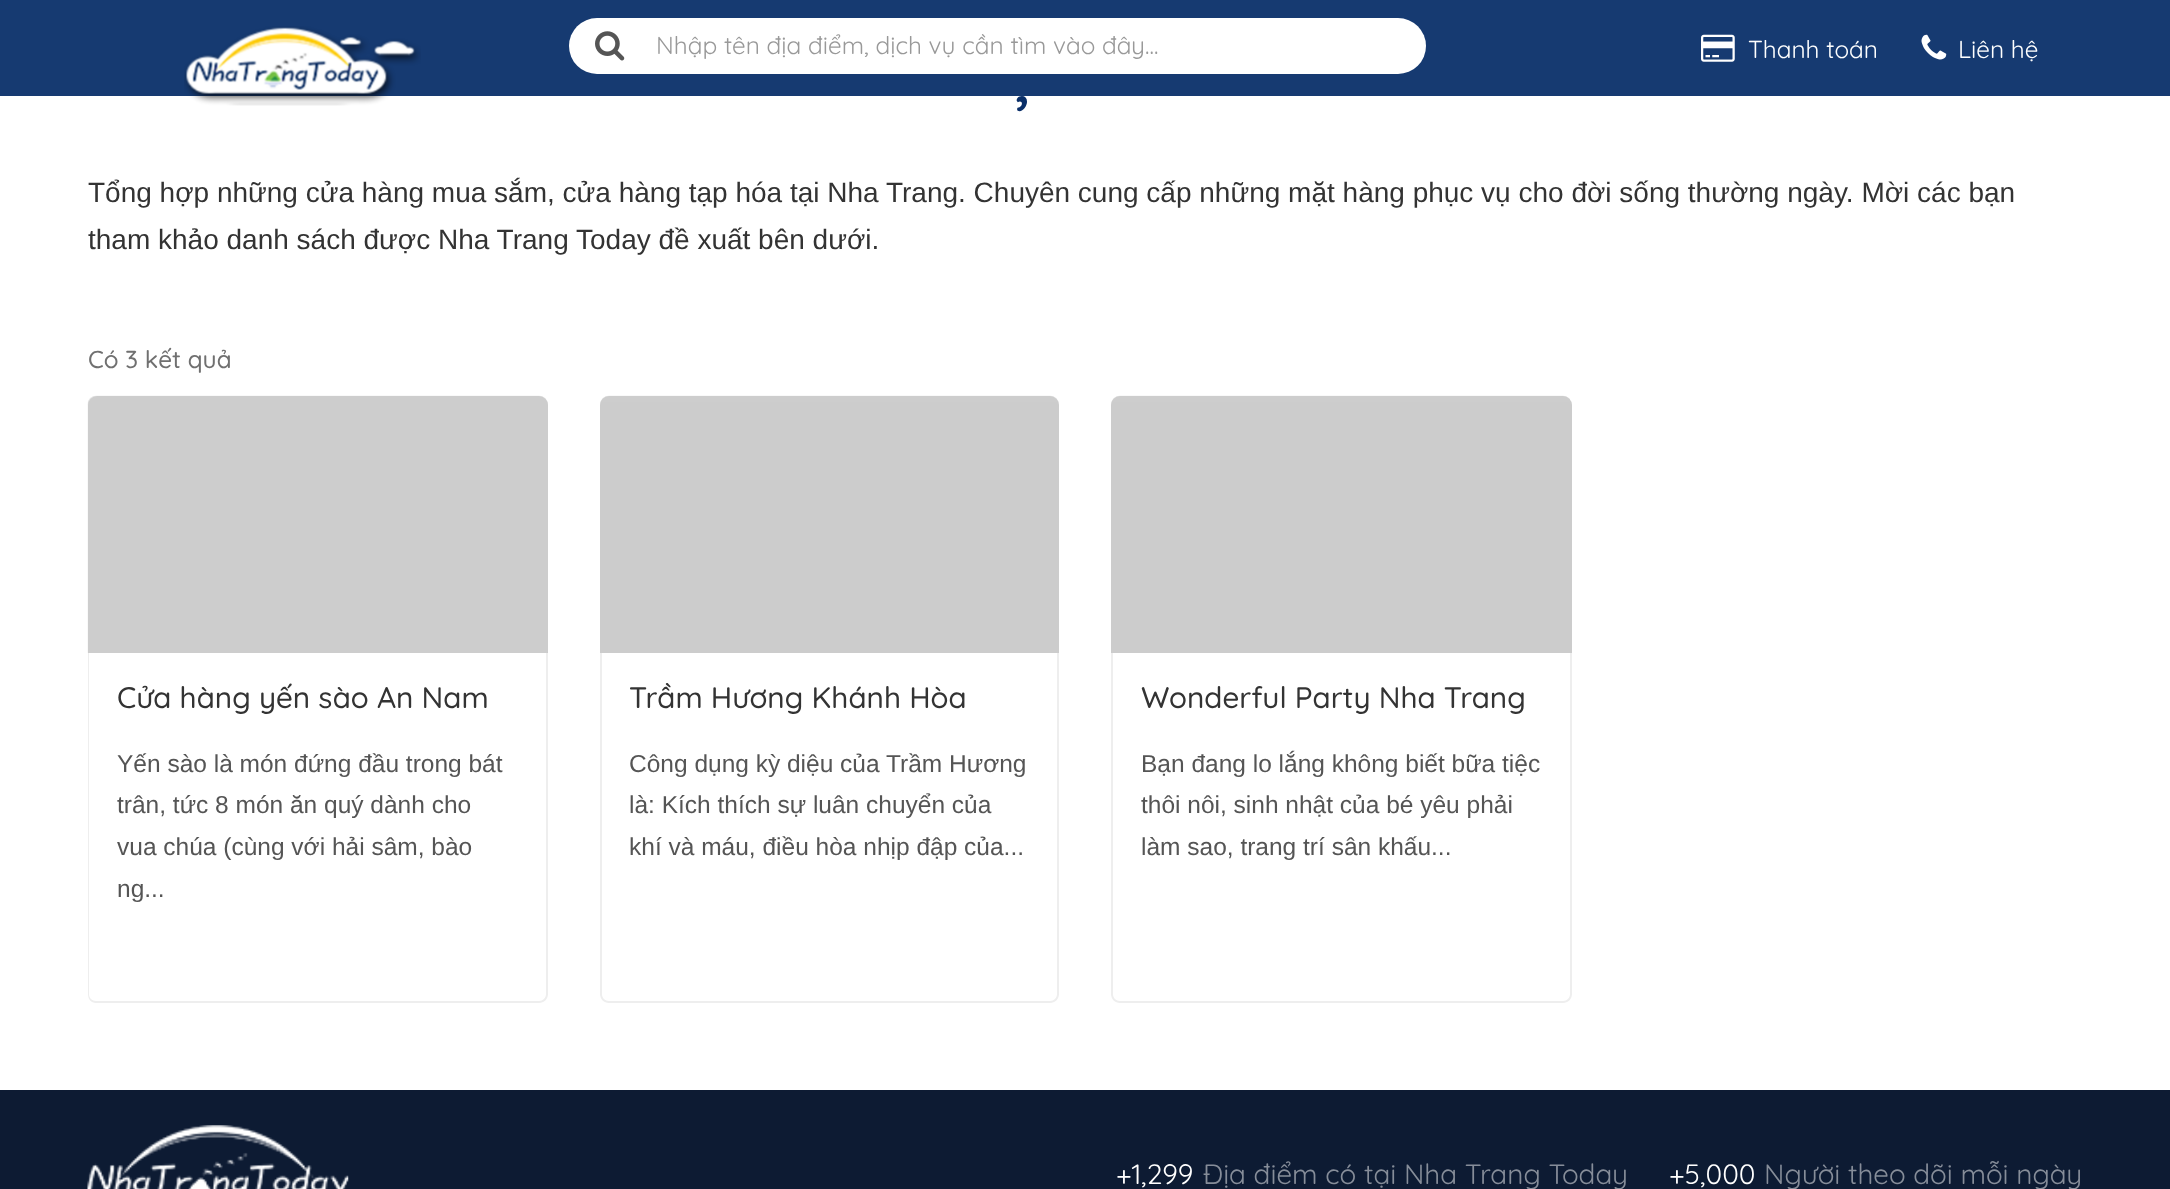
<!DOCTYPE html>
<meta charset="utf-8">
<style>body { margin: 0 } canvas { display: block }</style>
<canvas id="canvas" width="2170" height="1189"></canvas>
<img id="img1" src="img_01.png" hidden>
<img id="img2" src="img_02.png" hidden>
<img id="img3" src="img_03.png" hidden>
<img id="img4" src="img_04.png" hidden>
<img id="img5" src="img_05.png" hidden>
<img id="img6" src="img_06.png" hidden>
<img id="img7" src="img_07.png" hidden>
<img id="img8" src="img_08.png" hidden>
<script>
window.onload = function () {
	const canvas = document.getElementById("canvas");
	const ctx = canvas.getContext("2d");
	ctx.miterLimit = 4;
	ctx.fontKerning = "normal";
	function txt(s, x, y) {
		ctx.fillText(s, x, y);
	}
	function fill(x, y, w, h) {
		ctx.fillRect(x, y, w, h);
	}
	function round(x, y, w, h, r) {
		ctx.beginPath();
		ctx.roundRect(x, y, w, h, r);
		ctx.fill();
	}
	function img(id, x, y, w, h) {
		ctx.drawImage(document.getElementById(id), x, y, w, h);
	}

	ctx.fillStyle = "#FFFFFF";
	fill(0, 0, 2170, 1189);
	ctx.fillStyle = "rgba(10, 47, 105, 0.95)";
	fill(0, 0, 2170, 96);
	img("img1", 184, 26, 237, 80);
	ctx.fillStyle = "#FFFFFF";
	round(569, 18, 857, 56, 28);
	img("img2", 595, 31, 30, 30);
	img("img3", 1701, 34, 34, 28);
	img("img4", 1921, 34, 26, 26);
	ctx.fillStyle = "#CCCCCC";
	ctx.beginPath();
	ctx.roundRect(88, 396, 460, 257, [9, 9, 0, 0]);
	ctx.fill();
	img("img5", 87, 395, 461, 258);
	ctx.fillStyle = "#EEEEEE";
	ctx.beginPath();
	ctx.moveTo(88, 653);
	ctx.lineTo(548, 653);
	ctx.lineTo(548, 994);
	ctx.bezierCurveTo(548, 999, 544, 1003, 539, 1003);
	ctx.lineTo(96, 1003);
	ctx.bezierCurveTo(91, 1003, 88, 999, 88, 994);
	ctx.closePath();
	ctx.moveTo(89, 653);
	ctx.lineTo(546, 653);
	ctx.lineTo(546, 994);
	ctx.bezierCurveTo(546, 998, 543, 1001, 539, 1001);
	ctx.lineTo(96, 1001);
	ctx.bezierCurveTo(92, 1001, 89, 998, 89, 994);
	ctx.closePath();
	ctx.fill("evenodd");
	ctx.fillStyle = "#CCCCCC";
	ctx.beginPath();
	ctx.roundRect(600, 396, 459, 257, [9, 9, 0, 0]);
	ctx.fill();
	img("img6", 600, 395, 459, 7);
	ctx.fillStyle = "#EEEEEE";
	ctx.beginPath();
	ctx.moveTo(600, 653);
	ctx.lineTo(1059, 653);
	ctx.lineTo(1059, 994);
	ctx.bezierCurveTo(1059, 999, 1055, 1003, 1050, 1003);
	ctx.lineTo(609, 1003);
	ctx.bezierCurveTo(604, 1003, 600, 999, 600, 994);
	ctx.closePath();
	ctx.moveTo(602, 653);
	ctx.lineTo(1057, 653);
	ctx.lineTo(1057, 994);
	ctx.bezierCurveTo(1057, 998, 1054, 1001, 1050, 1001);
	ctx.lineTo(609, 1001);
	ctx.bezierCurveTo(605, 1001, 602, 998, 602, 994);
	ctx.closePath();
	ctx.fill("evenodd");
	ctx.fillStyle = "#CCCCCC";
	ctx.beginPath();
	ctx.roundRect(1111, 396, 461, 257, [9, 9, 0, 0]);
	ctx.fill();
	img("img7", 1111, 395, 459, 7);
	ctx.fillStyle = "#EEEEEE";
	ctx.beginPath();
	ctx.moveTo(1111, 653);
	ctx.lineTo(1572, 653);
	ctx.lineTo(1572, 994);
	ctx.bezierCurveTo(1572, 999, 1568, 1003, 1563, 1003);
	ctx.lineTo(1120, 1003);
	ctx.bezierCurveTo(1115, 1003, 1111, 999, 1111, 994);
	ctx.closePath();
	ctx.moveTo(1113, 653);
	ctx.lineTo(1570, 653);
	ctx.lineTo(1570, 994);
	ctx.bezierCurveTo(1570, 998, 1567, 1001, 1563, 1001);
	ctx.lineTo(1120, 1001);
	ctx.bezierCurveTo(1116, 1001, 1113, 998, 1113, 994);
	ctx.closePath();
	ctx.fill("evenodd");
	ctx.fillStyle = "#0D1B33";
	fill(0, 1090, 2170, 99);
	img("img8", 87, 1125, 262, 64);
	ctx.font = "24.5px Quicksand";
	ctx.fillStyle = "#999999";
	txt("Nhập tên địa điểm, dịch vụ cần tìm vào đây...", 656, 54);
	ctx.fillStyle = "#FFFFFF";
	txt("Thanh toán", 1748, 58);
	txt("Liên hệ", 1958, 58);
	ctx.font = "500 74px Quicksand";
	ctx.fillStyle = "#0A2F69";
	txt(",", 1014, 102);
	ctx.font = "28px Liberation Sans";
	ctx.fillStyle = "#333333";
	txt("Tổng hợp những cửa hàng mua sắm, cửa hàng tạp hóa tại Nha Trang. Chuyên cung cấp những mặt hàng phục vụ cho đời sống thường ngày. Mời các bạn", 88, 202);
	txt("tham khảo danh sách được Nha Trang Today đề xuất bên dưới.", 88, 249);
	ctx.font = "500 24.5px Quicksand";
	ctx.fillStyle = "#707070";
	txt("Có 3 kết quả", 88, 368);
	ctx.font = "500 29.75px Quicksand";
	ctx.fillStyle = "#333333";
	txt("Cửa hàng yến sào An Nam", 117, 708);
	ctx.font = "24.5px Liberation Sans";
	ctx.fillStyle = "#555555";
	txt("Yến sào là món đứng đầu trong bát", 117, 772);
	txt("trân, tức 8 món ăn quý dành cho", 117, 813);
	txt("vua chúa (cùng với hải sâm, bào", 117, 855);
	txt("ng...", 117, 897);
	ctx.font = "500 29.75px Quicksand";
	ctx.fillStyle = "#333333";
	txt("Trầm Hương Khánh Hòa", 629, 708);
	ctx.font = "24.5px Liberation Sans";
	ctx.fillStyle = "#555555";
	txt("Công dụng kỳ diệu của Trầm Hương", 629, 772);
	txt("là: Kích thích sự luân chuyển của", 629, 813);
	txt("khí và máu, điều hòa nhịp đập của...", 629, 855);
	ctx.font = "500 29.75px Quicksand";
	ctx.fillStyle = "#333333";
	txt("Wonderful Party Nha Trang", 1141, 708);
	ctx.font = "24.5px Liberation Sans";
	ctx.fillStyle = "#555555";
	txt("Bạn đang lo lắng không biết bữa tiệc", 1141, 772);
	txt("thôi nôi, sinh nhật của bé yêu phải", 1141, 813);
	txt("làm sao, trang trí sân khấu...", 1141, 855);
	ctx.font = "28px Quicksand";
	ctx.fillStyle = "#FFFFFF";
	txt("+1,299", 1116, 1184);
	ctx.fillStyle = "#868D99";
	txt("Địa điểm có tại Nha Trang Today", 1203, 1184);
	ctx.fillStyle = "#FFFFFF";
	txt("+5,000", 1669, 1184);
	ctx.fillStyle = "#868D99";
	txt("Người theo dõi mỗi ngày", 1764, 1184);
};
</script>
